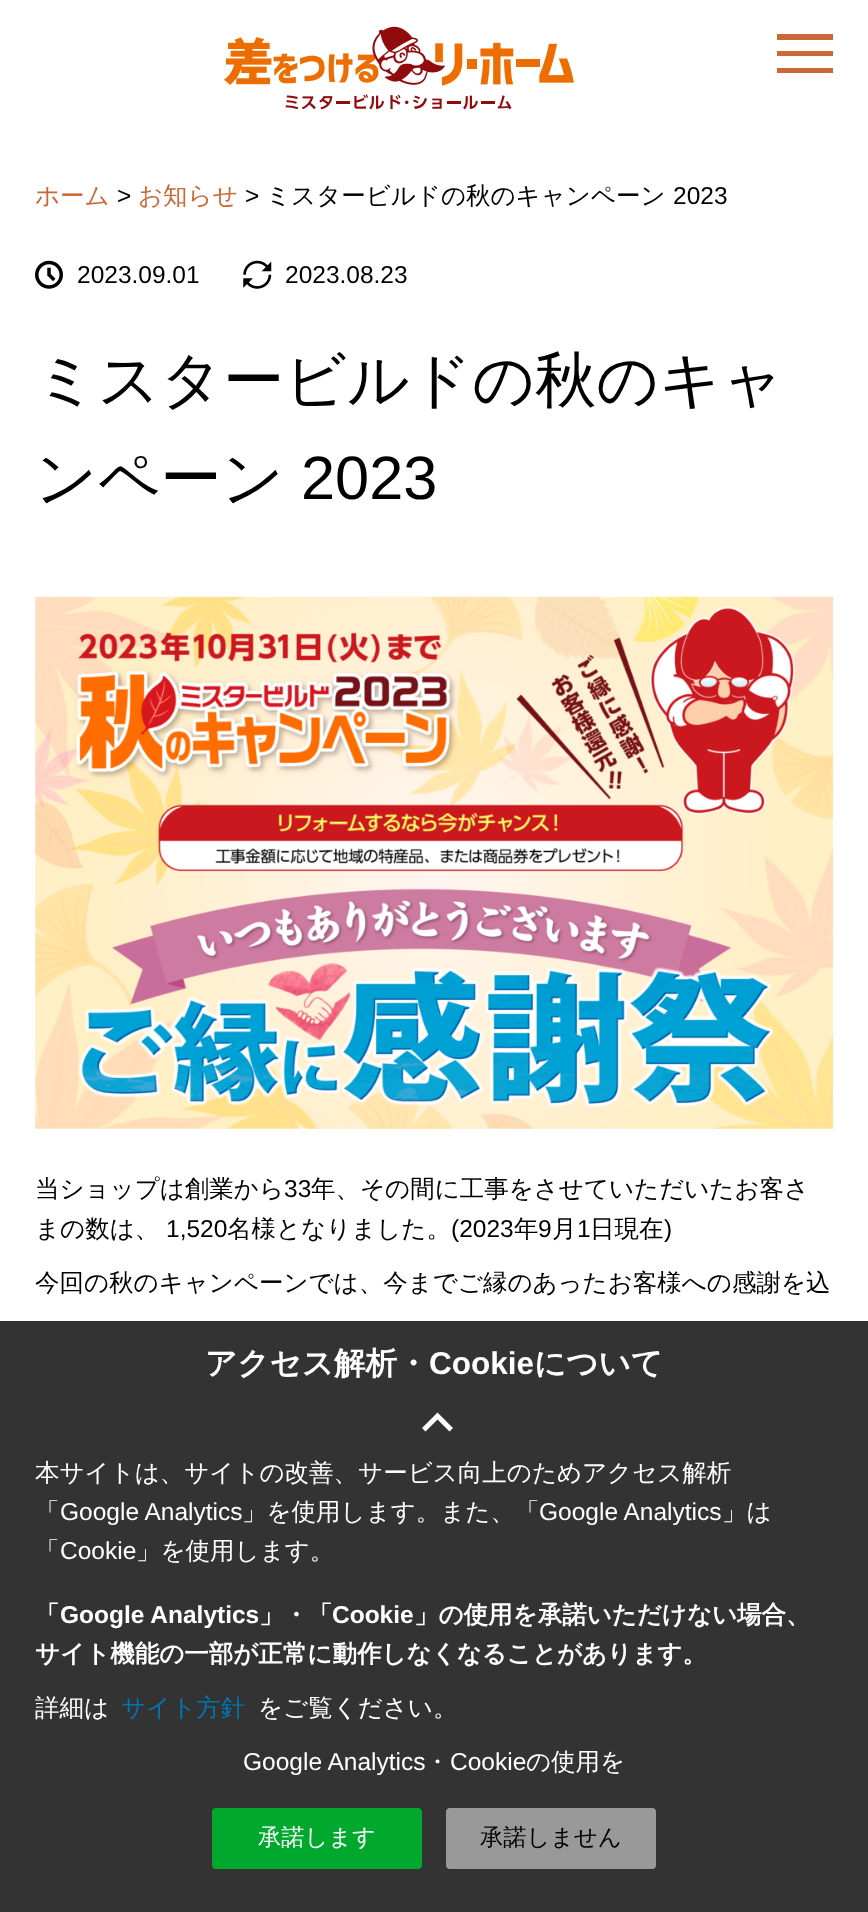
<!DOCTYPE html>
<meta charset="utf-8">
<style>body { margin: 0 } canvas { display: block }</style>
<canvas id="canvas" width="868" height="1912"></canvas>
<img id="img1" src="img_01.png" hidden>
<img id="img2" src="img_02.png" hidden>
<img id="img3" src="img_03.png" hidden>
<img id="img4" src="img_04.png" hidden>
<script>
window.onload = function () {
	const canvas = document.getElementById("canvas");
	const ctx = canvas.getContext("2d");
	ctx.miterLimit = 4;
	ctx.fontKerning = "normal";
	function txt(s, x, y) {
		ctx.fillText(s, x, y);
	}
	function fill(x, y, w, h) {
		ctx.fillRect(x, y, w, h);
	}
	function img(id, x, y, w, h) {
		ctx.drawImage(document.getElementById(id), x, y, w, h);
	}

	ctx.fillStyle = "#FFFFFF";
	fill(0, 0, 868, 1912);
	img("img1", 224, 26, 350, 84);
	ctx.fillStyle = "#CB6838";
	ctx.beginPath();
	ctx.moveTo(777, 34);
	ctx.lineTo(833, 34);
	ctx.lineTo(833, 40);
	ctx.lineTo(777, 40);
	ctx.closePath();
	ctx.moveTo(777, 51);
	ctx.lineTo(833, 51);
	ctx.lineTo(833, 56);
	ctx.lineTo(777, 56);
	ctx.closePath();
	ctx.moveTo(777, 68);
	ctx.lineTo(833, 68);
	ctx.lineTo(833, 73);
	ctx.lineTo(777, 73);
	ctx.closePath();
	ctx.fill();
	img("img2", 35, 260, 28, 29);
	img("img3", 243, 260, 29, 29);
	img("img4", 35, 596, 798, 533);
	ctx.fillStyle = "#333333";
	fill(0, 1321, 868, 591);
	ctx.fillStyle = "#FFFFFF";
	ctx.beginPath();
	ctx.moveTo(425.5, 1431.5);
	ctx.lineTo(422, 1428);
	ctx.lineTo(437.5, 1412.5);
	ctx.lineTo(453, 1428);
	ctx.lineTo(449.5, 1431.5);
	ctx.lineTo(437.5, 1419.5);
	ctx.closePath();
	ctx.fill();
	ctx.fillStyle = "#00A82D";
	ctx.beginPath();
	ctx.roundRect(214, 1810, 206, 57, 2);
	ctx.fill();
	ctx.strokeStyle = "#00A82D";
	ctx.lineWidth = 4;
	ctx.stroke();
	ctx.fillStyle = "#999999";
	ctx.beginPath();
	ctx.roundRect(448, 1810, 206, 57, 2);
	ctx.fill();
	ctx.strokeStyle = "#999999";
	ctx.stroke();
	ctx.font = "500 24.5px WenQuanYi Zen Hei";
	ctx.fillStyle = "#CB6838";
	txt("ホーム", 35, 204);
	ctx.font = "24.5px Liberation Sans";
	ctx.fillStyle = "#000000";
	txt(">", 117, 204);
	ctx.font = "500 24.5px WenQuanYi Zen Hei";
	ctx.fillStyle = "#CB6838";
	txt("お知らせ", 138, 204);
	ctx.font = "24.5px Liberation Sans";
	ctx.fillStyle = "#000000";
	txt(">", 245, 204);
	ctx.font = "500 24.5px WenQuanYi Zen Hei";
	txt("ミスタービルドの秋のキャンペーン", 266, 204);
	ctx.font = "24.5px Liberation Sans";
	txt("2023", 673, 204);
	txt("2023.09.01", 77, 283);
	txt("2023.08.23", 285, 283);
	ctx.font = "500 61.25px WenQuanYi Zen Hei";
	txt("ミスタービルドの秋のキャ", 35, 401);
	txt("ンペーン", 35, 499);
	ctx.font = "61.25px Liberation Sans";
	txt("2023", 301, 499);
	ctx.font = "500 24.5px WenQuanYi Zen Hei";
	txt("当ショップは創業から", 35, 1197);
	ctx.font = "24.5px Liberation Sans";
	txt("33", 284, 1197);
	ctx.font = "500 24.5px WenQuanYi Zen Hei";
	txt("年、その間に工事をさせていただいたお客さ", 311, 1197);
	txt("まの数は、", 35, 1237);
	ctx.font = "24.5px Liberation Sans";
	txt("1,520", 166, 1237);
	ctx.font = "500 24.5px WenQuanYi Zen Hei";
	txt("名様となりました。", 227, 1237);
	ctx.font = "24.5px Liberation Sans";
	txt("(2023", 451, 1237);
	ctx.font = "500 24.5px WenQuanYi Zen Hei";
	txt("年", 514, 1237);
	ctx.font = "24.5px Liberation Sans";
	txt("9", 538, 1237);
	ctx.font = "500 24.5px WenQuanYi Zen Hei";
	txt("月", 552, 1237);
	ctx.font = "24.5px Liberation Sans";
	txt("1", 577, 1237);
	ctx.font = "500 24.5px WenQuanYi Zen Hei";
	txt("日現在", 590, 1237);
	ctx.font = "24.5px Liberation Sans";
	txt(")", 664, 1237);
	ctx.font = "500 24.5px WenQuanYi Zen Hei";
	txt("今回の秋のキャンペーンでは、今までご縁のあったお客様への感謝を込", 35, 1291);
	ctx.font = "bold 31.5px WenQuanYi Zen Hei";
	ctx.fillStyle = "#FFFFFF";
	txt("アクセス解析・", 205, 1374);
	ctx.font = "bold 31.5px Liberation Sans";
	txt("Cookie", 429, 1374);
	ctx.font = "bold 31.5px WenQuanYi Zen Hei";
	txt("について", 534, 1374);
	ctx.font = "500 24.5px WenQuanYi Zen Hei";
	txt("本サイトは、サイトの改善、サービス向上のためアクセス解析", 35, 1481);
	txt("「", 35, 1520);
	ctx.font = "24.5px Liberation Sans";
	txt("Google Analytics", 60, 1520);
	ctx.font = "500 24.5px WenQuanYi Zen Hei";
	txt("」を使用します。また、「", 242, 1520);
	ctx.font = "24.5px Liberation Sans";
	txt("Google Analytics", 539, 1520);
	ctx.font = "500 24.5px WenQuanYi Zen Hei";
	txt("」は", 722, 1520);
	txt("「", 35, 1559);
	ctx.font = "24.5px Liberation Sans";
	txt("Cookie", 60, 1559);
	ctx.font = "500 24.5px WenQuanYi Zen Hei";
	txt("」を使用します。", 136, 1559);
	ctx.font = "bold 24.5px WenQuanYi Zen Hei";
	txt("「", 35, 1623);
	ctx.font = "bold 24.5px Liberation Sans";
	txt("Google Analytics", 60, 1623);
	ctx.font = "bold 24.5px WenQuanYi Zen Hei";
	txt("」・「", 259, 1623);
	ctx.font = "bold 24.5px Liberation Sans";
	txt("Cookie", 332, 1623);
	ctx.font = "bold 24.5px WenQuanYi Zen Hei";
	txt("」の使用を承諾いただけない場合、", 414, 1623);
	txt("サイト機能の一部が正常に動作しなくなることがあります。", 35, 1662);
	ctx.font = "500 24.5px WenQuanYi Zen Hei";
	txt("詳細は", 35, 1716);
	ctx.fillStyle = "#0074B1";
	txt("サイト方針", 121, 1716);
	ctx.fillStyle = "#FFFFFF";
	txt("をご覧ください。", 258, 1716);
	ctx.font = "24.5px Liberation Sans";
	txt("Google Analytics", 243, 1770);
	ctx.font = "500 24.5px WenQuanYi Zen Hei";
	txt("・", 425, 1770);
	ctx.font = "24.5px Liberation Sans";
	txt("Cookie", 450, 1770);
	ctx.font = "500 24.5px WenQuanYi Zen Hei";
	txt("の使用を", 526, 1770);
	ctx.font = "500 23.25px WenQuanYi Zen Hei";
	txt("承諾します", 258, 1845);
	ctx.fillStyle = "#000000";
	txt("承諾しません", 480, 1845);
};
</script>
